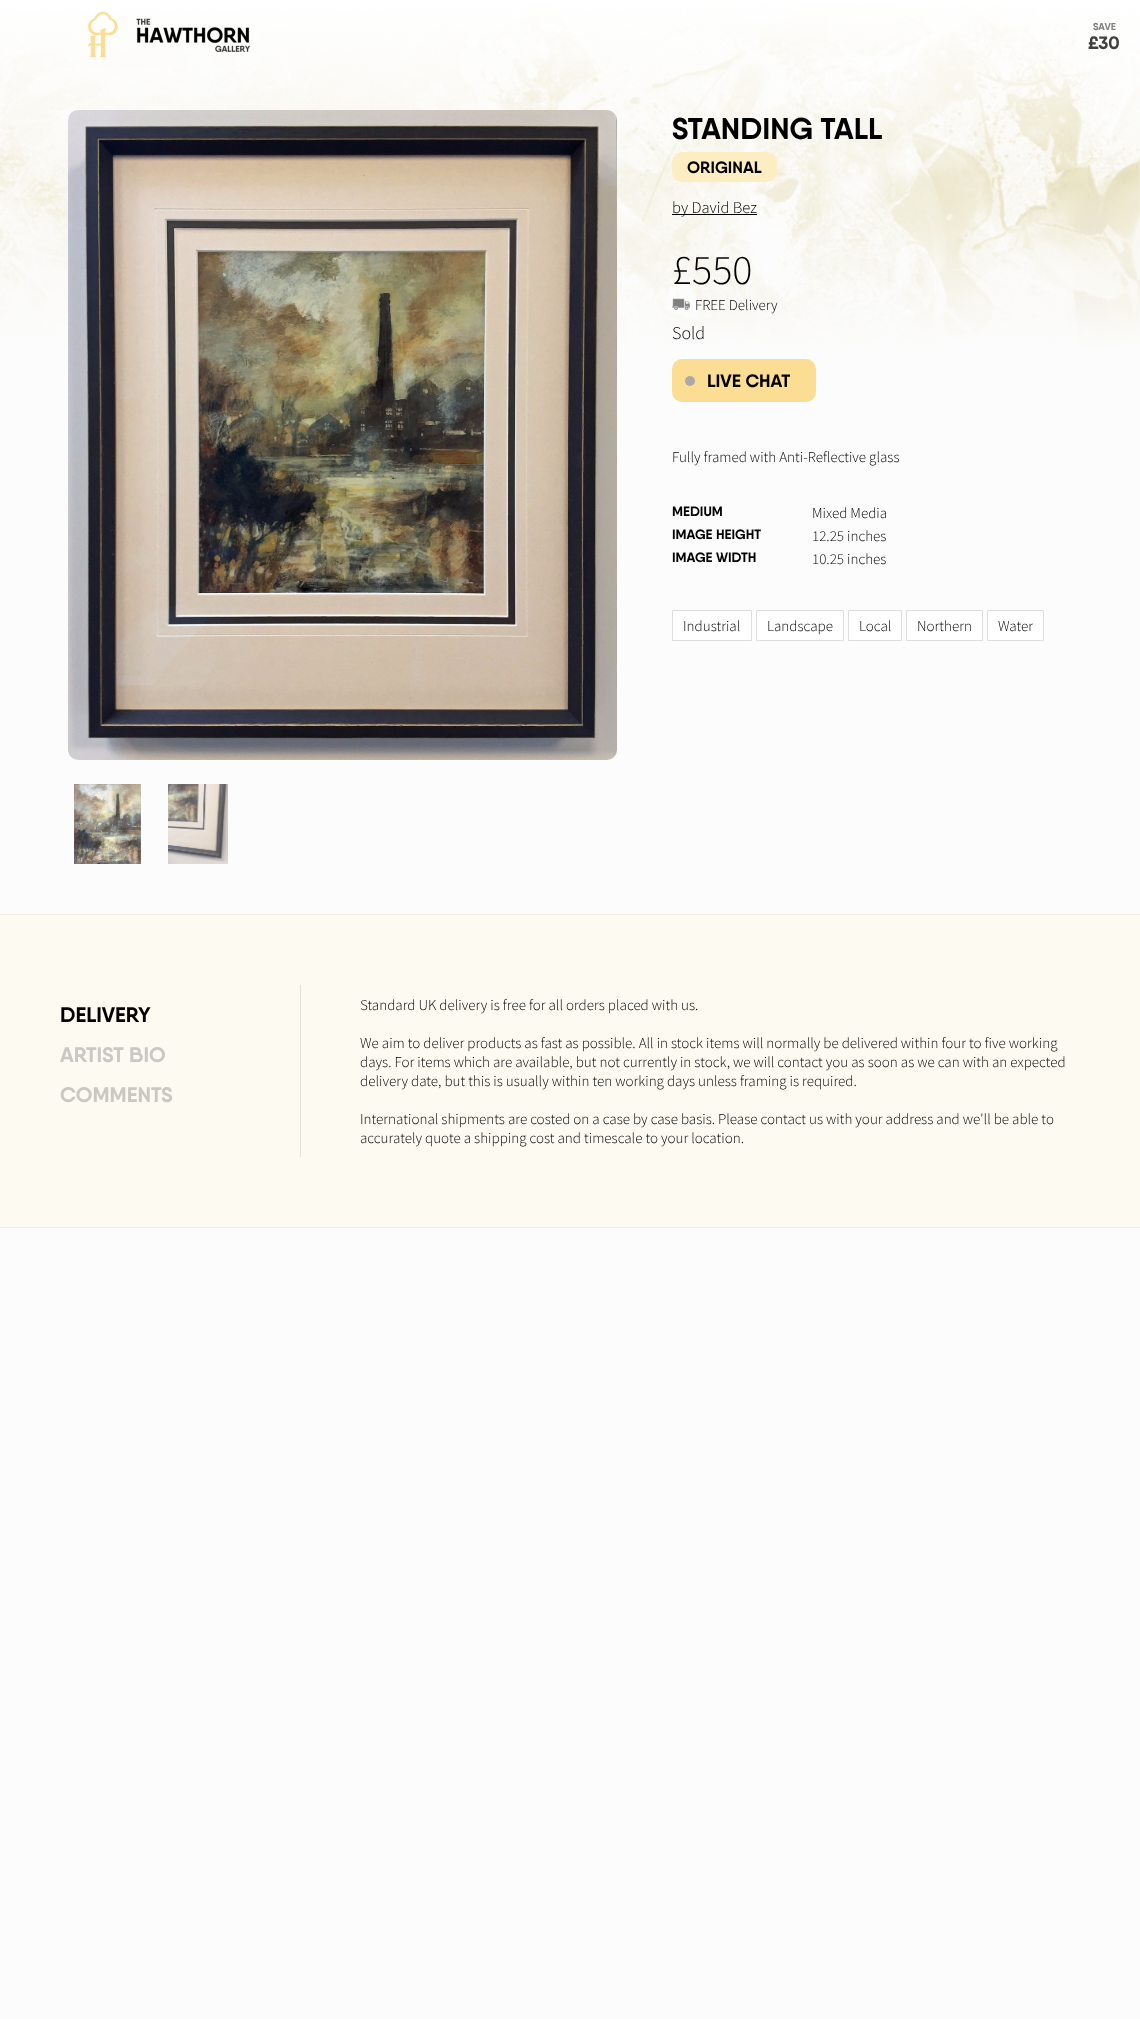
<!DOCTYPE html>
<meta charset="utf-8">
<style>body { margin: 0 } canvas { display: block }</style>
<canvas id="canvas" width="1140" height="2019"></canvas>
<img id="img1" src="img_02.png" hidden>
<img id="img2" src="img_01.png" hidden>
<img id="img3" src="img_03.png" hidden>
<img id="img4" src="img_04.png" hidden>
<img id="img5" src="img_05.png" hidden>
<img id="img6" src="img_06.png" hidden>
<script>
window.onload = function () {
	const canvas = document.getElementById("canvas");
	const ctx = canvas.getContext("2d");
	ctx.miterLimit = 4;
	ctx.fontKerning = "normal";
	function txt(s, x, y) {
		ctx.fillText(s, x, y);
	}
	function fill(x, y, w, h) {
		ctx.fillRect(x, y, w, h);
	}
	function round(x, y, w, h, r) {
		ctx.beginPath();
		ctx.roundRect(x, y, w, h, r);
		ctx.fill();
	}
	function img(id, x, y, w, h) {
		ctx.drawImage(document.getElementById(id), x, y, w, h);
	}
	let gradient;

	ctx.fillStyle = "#FCFCFC";
	fill(0, 0, 1140, 2019);
	img("img1", 0, 1, 1140, 348);
	gradient = ctx.createLinearGradient(570, 0, 570, 350);
	gradient.addColorStop(0, "#FFFFFF");
	gradient.addColorStop(0.5, "rgba(255, 255, 255, 0)");
	gradient.addColorStop(0.5, "rgba(252, 252, 252, 0)");
	gradient.addColorStop(1, "#FCFCFC");
	ctx.fillStyle = gradient;
	fill(0, 0, 1140, 349);
	img("img2", 87, 11, 163, 47);
	img("img3", 68, 110, 549, 650);
	img("img4", 74, 784, 67, 80);
	img("img5", 168, 784, 60, 80);
	ctx.fillStyle = "#FDEDC3";
	round(672, 152, 105, 30, 10);
	ctx.fillStyle = "#000000";
	fill(672, 214, 85, 1);
	img("img6", 672, 298, 18, 12);
	ctx.fillStyle = "#FBDE94";
	round(672, 359, 144, 43, 10);
	ctx.fillStyle = "#AAAAAA";
	ctx.beginPath();
	ctx.arc(690, 381, 5, 0, Math.PI * 2);
	ctx.fill();
	ctx.fillStyle = "#FFFFFF";
	ctx.beginPath();
	ctx.rect(672.5, 610.5, 79, 30);
	ctx.fill();
	ctx.strokeStyle = "#DEDEDE";
	ctx.stroke();
	ctx.beginPath();
	ctx.rect(756.5, 610.5, 87, 30);
	ctx.fill();
	ctx.stroke();
	ctx.beginPath();
	ctx.rect(848.5, 610.5, 53, 30);
	ctx.fill();
	ctx.stroke();
	ctx.beginPath();
	ctx.rect(906.5, 610.5, 76, 30);
	ctx.fill();
	ctx.stroke();
	ctx.beginPath();
	ctx.rect(987.5, 610.5, 56, 30);
	ctx.fill();
	ctx.stroke();
	ctx.fillStyle = "#FDFAF2";
	fill(0, 915, 1140, 312);
	ctx.fillStyle = "#F0EEE6";
	fill(0, 914, 1140, 1);
	fill(0, 1227, 1140, 1);
	ctx.fillStyle = "#E4E1DA";
	fill(300, 985, 1, 172);
	ctx.font = "bold 10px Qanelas";
	ctx.fillStyle = "#808080";
	txt("SAVE", 1093, 30);
	ctx.font = "bold 18px Qanelas";
	ctx.fillStyle = "#404040";
	txt("£30", 1088, 49);
	ctx.font = "bold 30px Qanelas";
	ctx.fillStyle = "#000000";
	txt("STANDING TALL", 672, 139);
	ctx.font = "bold 16.5px Qanelas";
	txt("ORIGINAL", 687, 173);
	ctx.font = "300 16.5px Source Sans Pro";
	txt("by David Bez", 672, 213);
	ctx.font = "300 42px Source Sans Pro";
	txt("£550", 672, 284);
	ctx.font = "300 15px Source Sans Pro";
	txt("FREE Delivery", 695, 310);
	ctx.font = "300 18px Source Sans Pro";
	txt("Sold", 672, 339);
	ctx.font = "bold 18px Qanelas";
	txt("LIVE CHAT", 707, 387);
	ctx.font = "300 15px Source Sans Pro";
	txt("Fully framed with Anti-Reflective glass", 672, 462);
	ctx.font = "bold 13.5px Qanelas";
	txt("MEDIUM", 672, 516);
	ctx.font = "300 15px Source Sans Pro";
	txt("Mixed Media", 812, 518);
	ctx.font = "bold 13.5px Qanelas";
	txt("IMAGE HEIGHT", 672, 539);
	ctx.font = "300 15px Source Sans Pro";
	txt("12.25 inches", 812, 541);
	ctx.font = "bold 13.5px Qanelas";
	txt("IMAGE WIDTH", 672, 562);
	ctx.font = "300 15px Source Sans Pro";
	txt("10.25 inches", 812, 564);
	txt("Industrial", 683, 631);
	txt("Landscape", 767, 631);
	txt("Local", 859, 631);
	txt("Northern", 917, 631);
	txt("Water", 998, 631);
	ctx.font = "bold 21px Qanelas";
	txt("DELIVERY", 60, 1022);
	ctx.fillStyle = "#CAC8C2";
	txt("ARTIST BIO", 60, 1062);
	txt("COMMENTS", 60, 1102);
	ctx.font = "300 15px Source Sans Pro";
	ctx.fillStyle = "#000000";
	txt("Standard UK delivery is free for all orders placed with us.", 360, 1010);
	txt("We aim to deliver products as fast as possible. All in stock items will normally be delivered within four to five working", 360, 1048);
	txt("days. For items which are available, but not currently in stock, we will contact you as soon as we can with an expected", 360, 1067);
	txt("delivery date, but this is usually within ten working days unless framing is required.", 360, 1086);
	txt("International shipments are costed on a case by case basis. Please contact us with your address and we'll be able to", 360, 1124);
	txt("accurately quote a shipping cost and timescale to your location.", 360, 1143);
};
</script>
